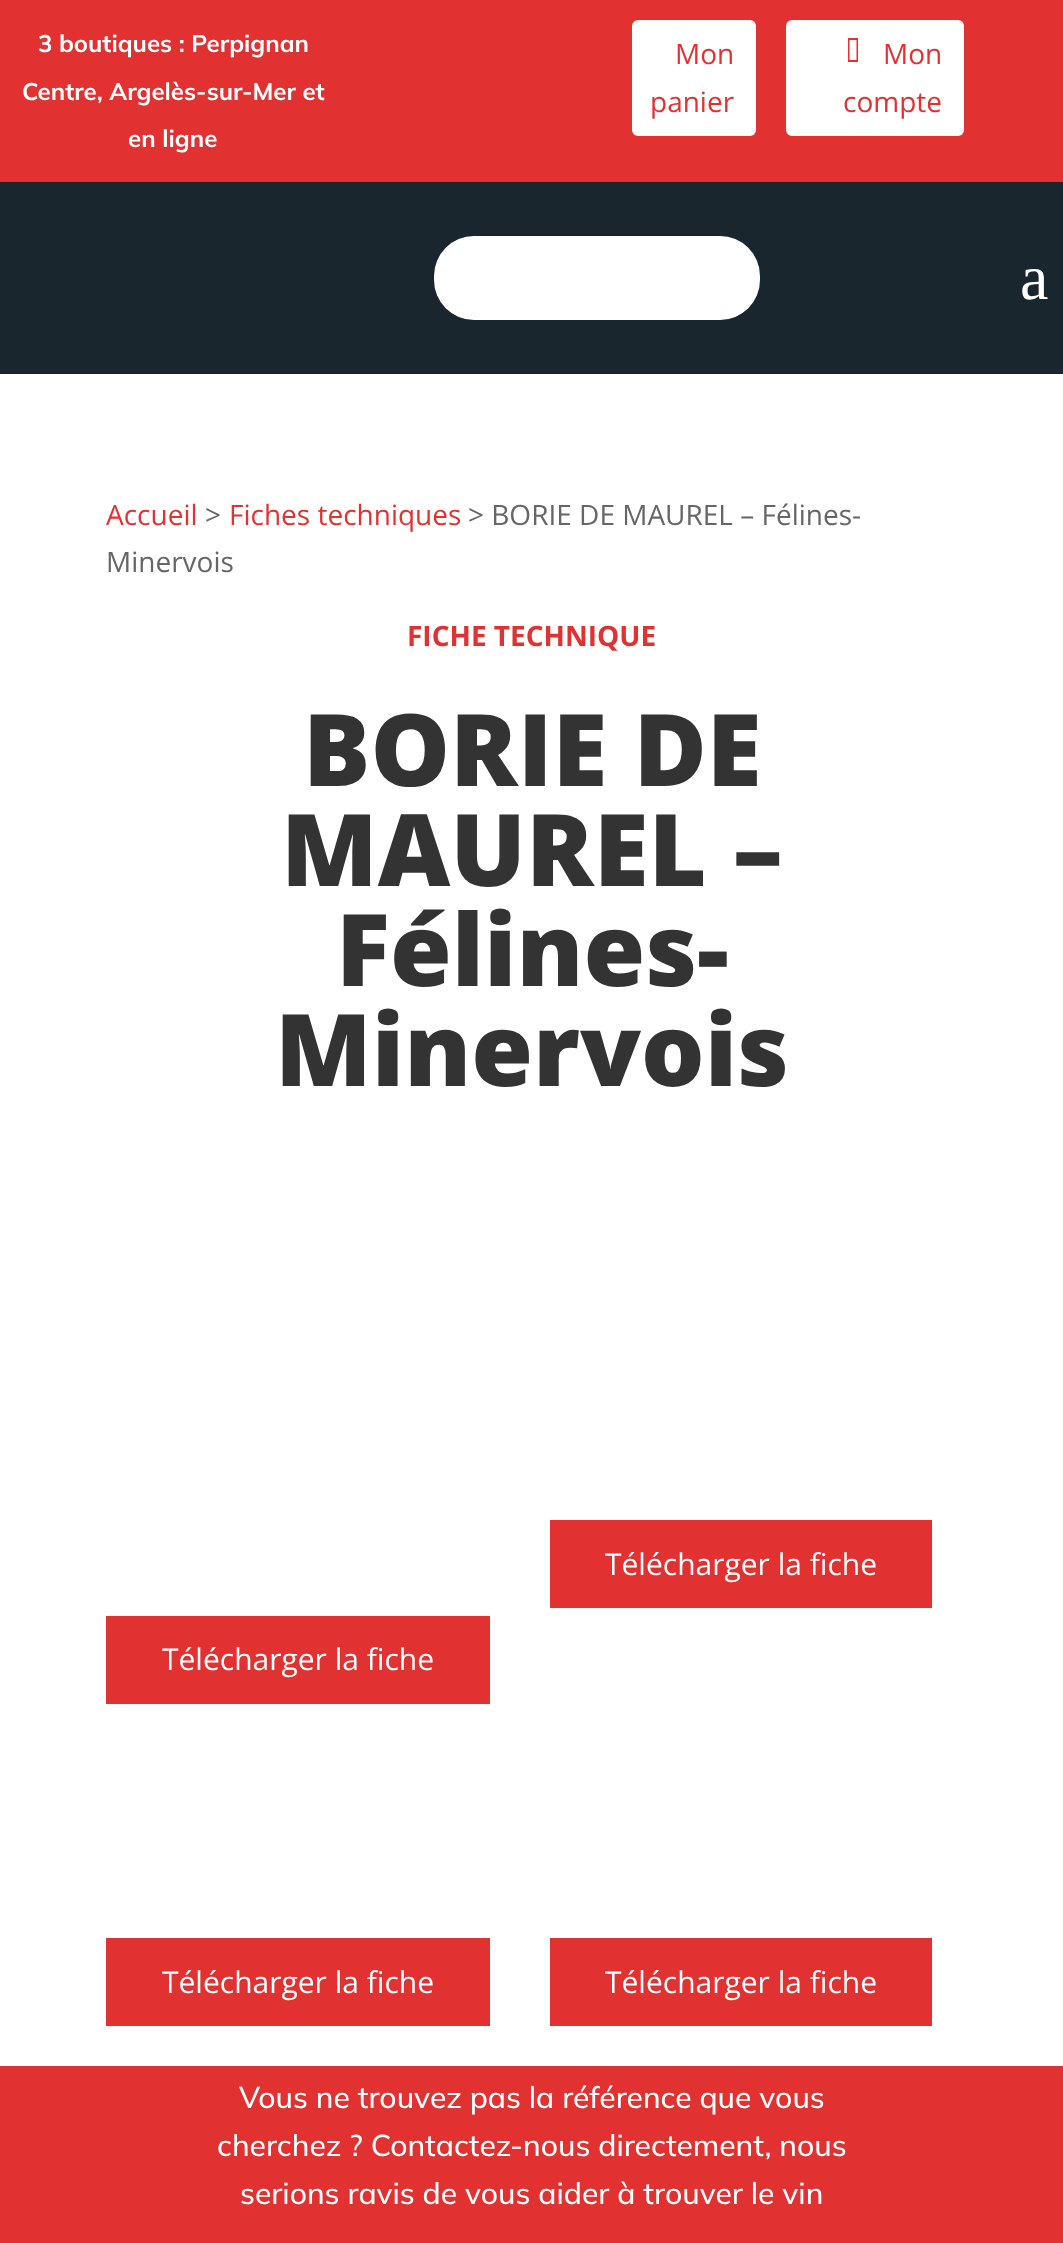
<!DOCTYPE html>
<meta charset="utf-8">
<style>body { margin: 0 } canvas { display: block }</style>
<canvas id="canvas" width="1063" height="2243"></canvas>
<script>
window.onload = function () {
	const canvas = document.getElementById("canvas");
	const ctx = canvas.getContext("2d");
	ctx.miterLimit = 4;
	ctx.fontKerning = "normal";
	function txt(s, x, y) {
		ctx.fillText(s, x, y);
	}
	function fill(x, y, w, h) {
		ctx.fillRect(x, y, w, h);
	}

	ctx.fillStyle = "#FFFFFF";
	fill(0, 0, 1063, 2243);
	ctx.fillStyle = "#E23131";
	fill(0, 0, 1063, 182);
	ctx.fillStyle = "#FFFFFF";
	ctx.beginPath();
	ctx.roundRect(633, 21, 122, 114, 5);
	ctx.fill();
	ctx.strokeStyle = "#FFFFFF";
	ctx.lineWidth = 2;
	ctx.stroke();
	ctx.beginPath();
	ctx.roundRect(787, 21, 176, 114, 5);
	ctx.fill();
	ctx.stroke();
	ctx.fillStyle = "#E23131";
	ctx.beginPath();
	ctx.moveTo(849.5, 60);
	ctx.lineTo(849.5, 40);
	ctx.lineTo(856.5, 40);
	ctx.lineTo(856.5, 60);
	ctx.closePath();
	ctx.moveTo(848, 62);
	ctx.lineTo(858, 62);
	ctx.lineTo(858, 38);
	ctx.lineTo(848, 38);
	ctx.closePath();
	ctx.fill();
	ctx.fillStyle = "#19262E";
	fill(0, 182, 1063, 192);
	ctx.fillStyle = "#FFFFFF";
	ctx.beginPath();
	ctx.roundRect(434, 236, 240, 84, [40, 0, 0, 40]);
	ctx.fill();
	ctx.beginPath();
	ctx.roundRect(674, 236, 86, 84, [0, 40, 40, 0]);
	ctx.fill();
	ctx.fillStyle = "#E23131";
	fill(550, 1520, 382, 88);
	fill(106, 1616, 384, 88);
	fill(106, 1938, 384, 88);
	fill(550, 1938, 382, 88);
	fill(0, 2066, 1063, 177);
	ctx.font = "bold 24px Mulish";
	ctx.fillStyle = "#FFFFFF";
	txt("3 boutiques : Perpignan", 38, 52);
	txt("Centre, Argelès-sur-Mer et", 22, 100);
	txt("en ligne", 128, 147);
	ctx.font = "28px Open Sans";
	ctx.fillStyle = "#E23131";
	txt("Mon", 675, 64);
	txt("panier", 650, 112);
	txt("Mon", 883, 64);
	txt("compte", 843, 112);
	ctx.font = "64px Liberation Serif";
	ctx.fillStyle = "#FFFFFF";
	txt("a", 1020, 299);
	ctx.font = "28px Open Sans";
	ctx.fillStyle = "#E23131";
	txt("Accueil", 106, 525);
	ctx.fillStyle = "#666666";
	txt(">", 205, 525);
	ctx.fillStyle = "#E23131";
	txt("Fiches techniques", 229, 525);
	ctx.fillStyle = "#666666";
	txt("> BORIE DE MAUREL – Félines-", 468, 525);
	txt("Minervois", 106, 572);
	ctx.font = "bold 28px Open Sans";
	ctx.fillStyle = "#E23131";
	txt("FICHE TECHNIQUE", 407, 646);
	ctx.font = "800 100px Open Sans";
	ctx.fillStyle = "#333333";
	txt("BORIE DE", 303, 786);
	txt("MAUREL –", 281, 886);
	txt("Félines-", 336, 986);
	txt("Minervois", 275, 1086);
	ctx.font = "30px Open Sans";
	ctx.fillStyle = "#FFFFFF";
	txt("Télécharger la fiche", 605, 1575);
	txt("Télécharger la fiche", 162, 1670);
	txt("Télécharger la fiche", 162, 1993);
	txt("Télécharger la fiche", 605, 1993);
	ctx.font = "500 30px Mulish";
	txt("Vous ne trouvez pas la référence que vous", 239, 2108);
	txt("cherchez ? Contactez-nous directement, nous", 217, 2156);
	txt("serions ravis de vous aider à trouver le vin", 240, 2204);
};
</script>
